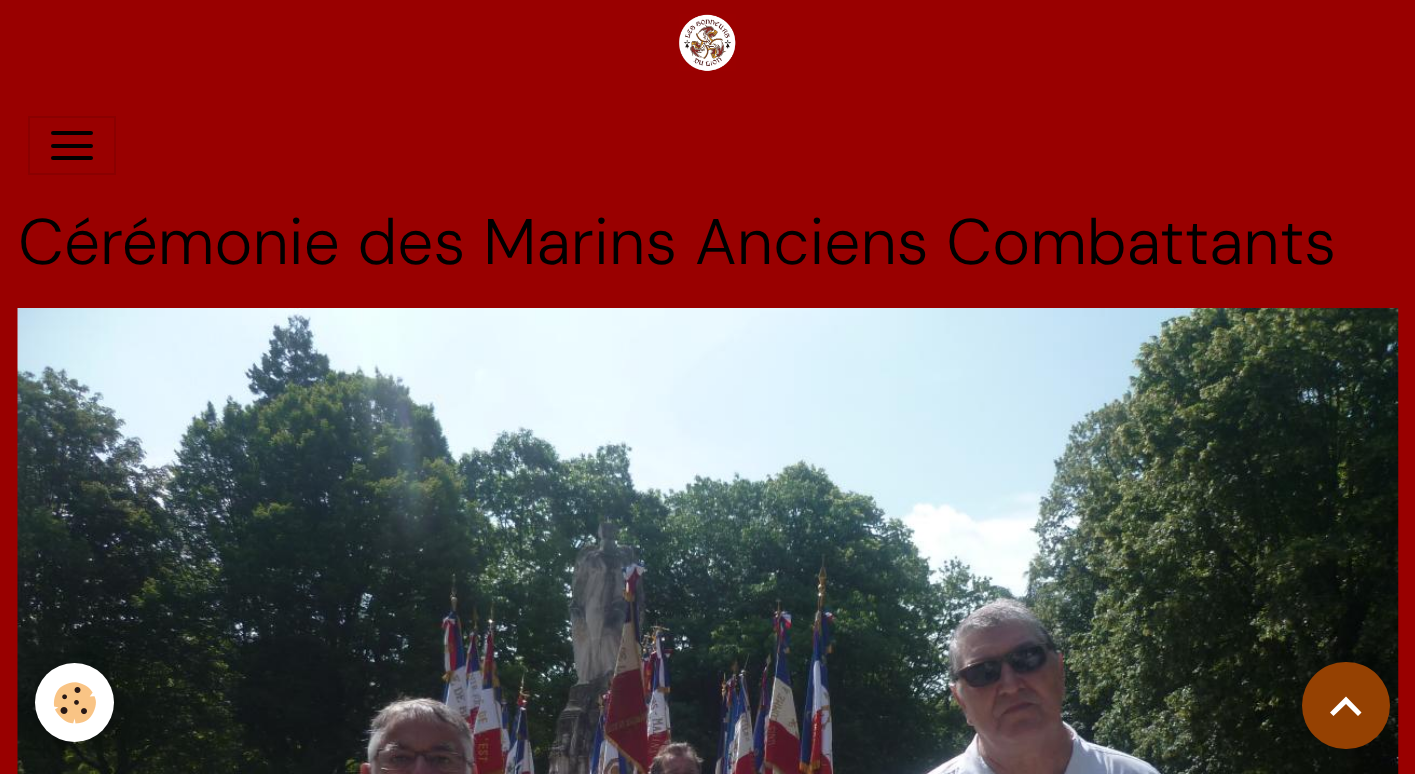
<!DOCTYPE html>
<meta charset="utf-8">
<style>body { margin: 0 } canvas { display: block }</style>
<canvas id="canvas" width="1415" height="774"></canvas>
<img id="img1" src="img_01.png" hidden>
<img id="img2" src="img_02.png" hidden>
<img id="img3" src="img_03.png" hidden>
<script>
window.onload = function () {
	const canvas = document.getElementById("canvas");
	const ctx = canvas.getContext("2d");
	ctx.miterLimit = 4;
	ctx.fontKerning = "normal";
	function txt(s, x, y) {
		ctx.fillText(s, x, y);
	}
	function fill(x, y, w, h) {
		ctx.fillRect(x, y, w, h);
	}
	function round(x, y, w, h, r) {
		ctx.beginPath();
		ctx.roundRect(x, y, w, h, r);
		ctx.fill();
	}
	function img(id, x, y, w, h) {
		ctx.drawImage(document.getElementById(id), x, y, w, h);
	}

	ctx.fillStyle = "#990000";
	fill(0, 0, 1415, 774);
	img("img1", 679, 14, 57, 57);
	ctx.strokeStyle = "#8A0000";
	ctx.lineWidth = 2;
	ctx.strokeRect(29, 117, 86, 57);
	ctx.fillStyle = "#000000";
	round(51, 131, 42, 4, 2);
	round(51, 144, 42, 4, 2);
	round(51, 156, 42, 4, 2);
	img("img2", 17, 308, 1382, 466);
	ctx.fillStyle = "rgba(0, 0, 0, 0.24)";
	ctx.filter = "blur(9px)";
	ctx.beginPath();
	ctx.roundRect(35, 669, 79, 78, 39);
	ctx.fill();
	ctx.filter = "none";
	ctx.fillStyle = "#FFFFFF";
	ctx.beginPath();
	ctx.arc(74.5, 702.5, 39.5, 0, Math.PI * 2);
	ctx.fill();
	img("img3", 53, 682, 43, 42);
	ctx.fillStyle = "#954102";
	round(1302, 662, 88, 87, 43.5);
	ctx.fillStyle = "#FFFFFF";
	ctx.beginPath();
	ctx.moveTo(1346, 696.5);
	ctx.lineTo(1361.5, 712.5);
	ctx.lineTo(1358, 716);
	ctx.lineTo(1346, 704);
	ctx.lineTo(1333.5, 716);
	ctx.lineTo(1330, 712.5);
	ctx.closePath();
	ctx.fill();
	ctx.font = "300 64.4px DM Sans";
	ctx.fillStyle = "#000000";
	txt("Cérémonie des Marins Anciens Combattants", 18, 264);
};
</script>
